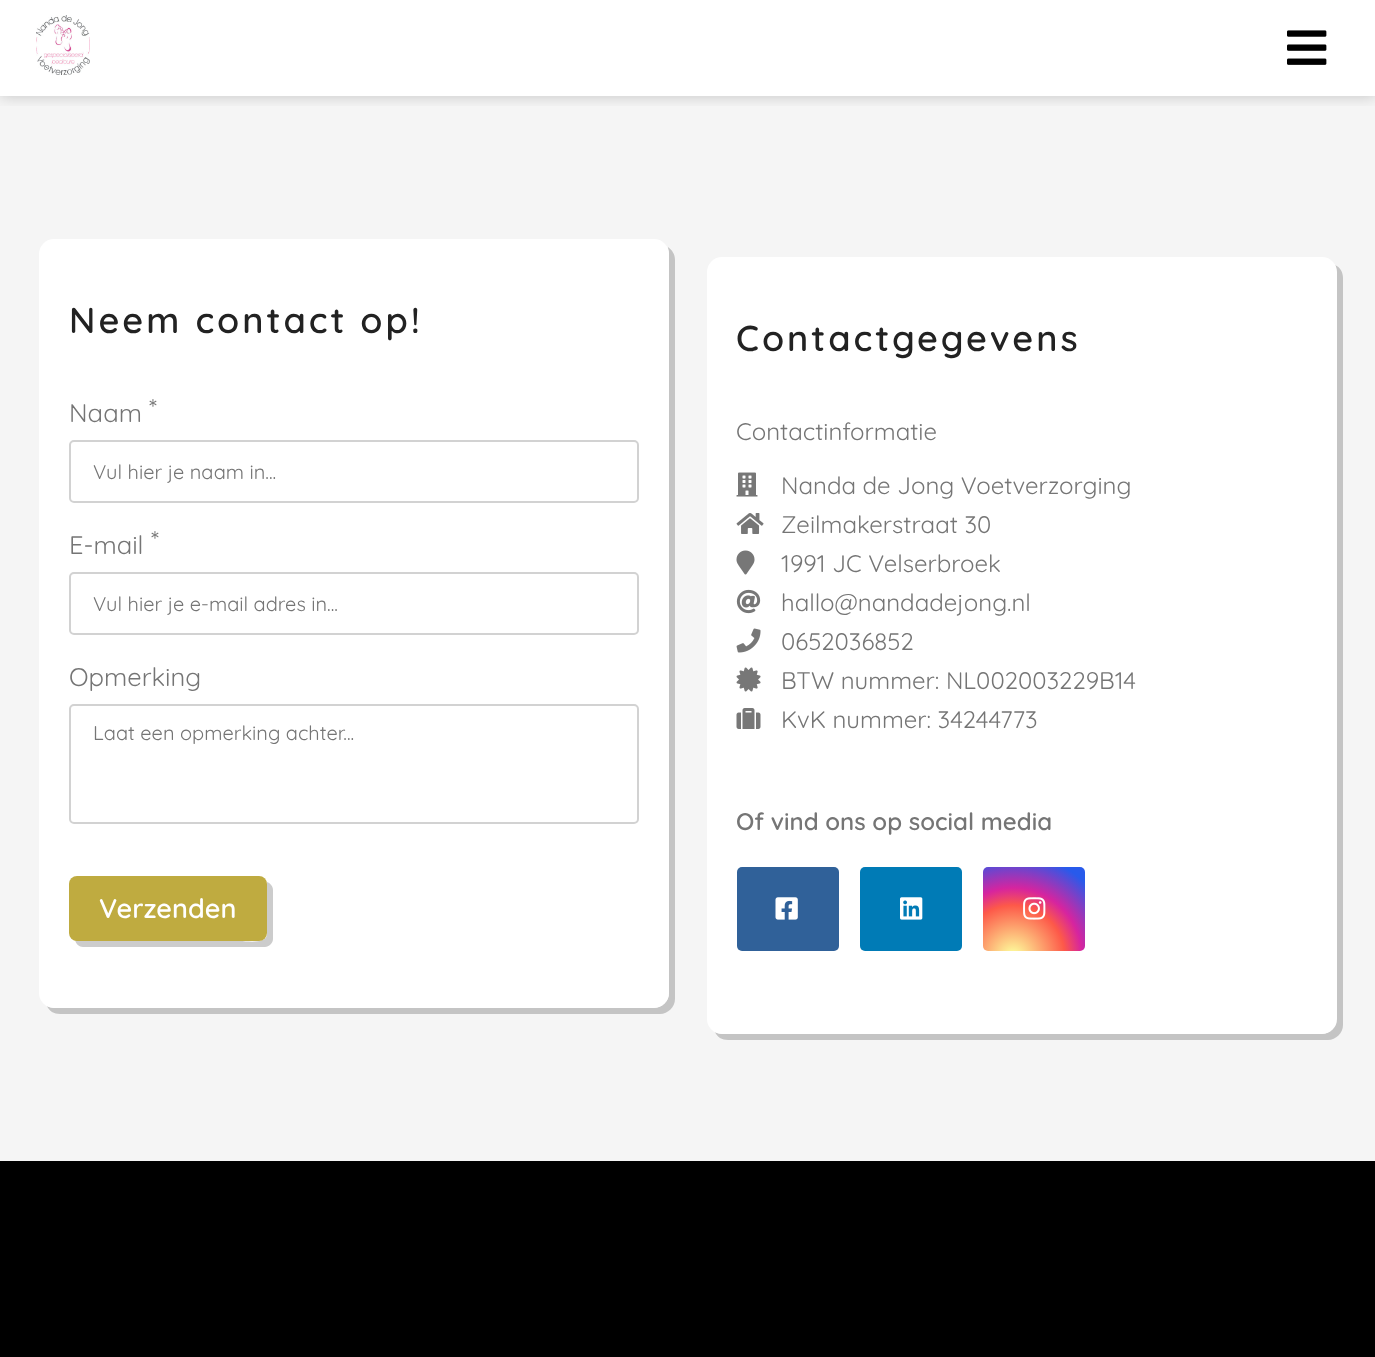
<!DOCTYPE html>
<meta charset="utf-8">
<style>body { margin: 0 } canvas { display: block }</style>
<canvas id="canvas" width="1375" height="1357"></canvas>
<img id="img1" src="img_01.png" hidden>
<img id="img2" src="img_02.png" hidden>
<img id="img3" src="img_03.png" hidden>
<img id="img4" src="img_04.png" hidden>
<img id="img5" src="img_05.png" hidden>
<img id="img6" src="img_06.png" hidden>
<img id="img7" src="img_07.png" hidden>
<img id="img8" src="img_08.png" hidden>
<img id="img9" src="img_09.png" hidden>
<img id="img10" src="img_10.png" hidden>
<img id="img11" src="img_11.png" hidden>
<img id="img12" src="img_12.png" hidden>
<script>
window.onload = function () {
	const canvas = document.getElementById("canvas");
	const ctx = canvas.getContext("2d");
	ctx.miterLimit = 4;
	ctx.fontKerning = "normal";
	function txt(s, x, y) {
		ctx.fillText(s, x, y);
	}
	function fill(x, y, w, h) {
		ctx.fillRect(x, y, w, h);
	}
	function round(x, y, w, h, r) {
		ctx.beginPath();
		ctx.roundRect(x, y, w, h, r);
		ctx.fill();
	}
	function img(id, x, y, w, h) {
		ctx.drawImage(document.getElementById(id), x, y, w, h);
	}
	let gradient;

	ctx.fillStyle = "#FFFFFF";
	fill(0, 0, 1375, 1357);
	ctx.fillStyle = "#F5F5F5";
	fill(0, 96, 1375, 1065);
	ctx.save();
	ctx.beginPath();
	ctx.rect(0, 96, 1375, 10);
	ctx.clip();
	ctx.fillStyle = "rgba(0, 0, 0, 0.2)";
	ctx.filter = "blur(7.5px)";
	ctx.beginPath();
	ctx.rect(0, 0, 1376, 96);
	ctx.fill();
	ctx.filter = "none";
	ctx.restore();
	img("img1", 36, 15, 54, 60);
	img("img2", 1287, 30, 40, 35);
	ctx.fillStyle = "#C4C4C4";
	ctx.beginPath();
	ctx.moveTo(47, 1006);
	ctx.bezierCurveTo(49, 1011, 54, 1014, 60, 1014);
	ctx.lineTo(660, 1014);
	ctx.bezierCurveTo(668, 1014, 675, 1007, 675, 999);
	ctx.lineTo(675, 260);
	ctx.bezierCurveTo(675, 254, 672, 250, 668, 247);
	ctx.bezierCurveTo(668, 249, 669, 251, 669, 254);
	ctx.lineTo(669, 993);
	ctx.bezierCurveTo(669, 1001, 662, 1008, 654, 1008);
	ctx.lineTo(54, 1008);
	ctx.bezierCurveTo(51, 1008, 49, 1007, 47, 1006);
	ctx.closePath();
	ctx.fill();
	ctx.fillStyle = "#FFFFFF";
	round(39, 239, 630, 769, 15);
	ctx.beginPath();
	ctx.roundRect(70, 441, 568, 61, 4);
	ctx.strokeStyle = "#D2D2D2";
	ctx.lineWidth = 2;
	ctx.stroke();
	ctx.beginPath();
	ctx.roundRect(70, 573, 568, 61, 4);
	ctx.stroke();
	ctx.beginPath();
	ctx.roundRect(70, 705, 568, 118, 4);
	ctx.stroke();
	ctx.fillStyle = "#CCCCCC";
	ctx.beginPath();
	ctx.moveTo(75, 940);
	ctx.bezierCurveTo(76, 944, 79, 947, 83, 947);
	ctx.lineTo(265, 947);
	ctx.bezierCurveTo(269, 947, 273, 943, 273, 939);
	ctx.lineTo(273, 890);
	ctx.bezierCurveTo(273, 886, 270, 883, 267, 882);
	ctx.lineTo(267, 935);
	ctx.bezierCurveTo(265, 946, 239, 940, 229, 940);
	ctx.closePath();
	ctx.fill();
	ctx.fillStyle = "#BFAB40";
	round(69, 876, 198, 65, 8);
	ctx.fillStyle = "#C4C4C4";
	ctx.beginPath();
	ctx.moveTo(715, 1032);
	ctx.bezierCurveTo(717, 1037, 722, 1040, 728, 1040);
	ctx.lineTo(1328, 1040);
	ctx.bezierCurveTo(1336, 1040, 1343, 1033, 1343, 1025);
	ctx.lineTo(1343, 278);
	ctx.bezierCurveTo(1343, 272, 1340, 267, 1335, 265);
	ctx.bezierCurveTo(1336, 267, 1336, 269, 1336, 272);
	ctx.lineTo(1336, 1018);
	ctx.bezierCurveTo(1336, 1027, 1330, 1034, 1322, 1034);
	ctx.lineTo(722, 1034);
	ctx.bezierCurveTo(719, 1034, 717, 1033, 715, 1032);
	ctx.closePath();
	ctx.fill();
	ctx.fillStyle = "#FFFFFF";
	round(707, 257, 630, 777, 15);
	img("img3", 736, 472, 22, 25);
	img("img4", 736, 513, 28, 21);
	img("img5", 736, 550, 19, 25);
	img("img6", 736, 589, 25, 25);
	img("img7", 736, 628, 25, 25);
	img("img8", 736, 667, 25, 25);
	img("img9", 736, 708, 25, 21);
	ctx.fillStyle = "#306199";
	round(737, 867, 102, 84, 5);
	img("img10", 775, 897, 23, 23);
	ctx.fillStyle = "#007BB6";
	round(860, 867, 102, 84, 5);
	img("img11", 900, 897, 23, 23);
	gradient = ctx.createRadialGradient(1013, 957, 0, 1013, 957, 115);
	gradient.addColorStop(0, "#FDF497");
	gradient.addColorStop(0.05, "#FDF497");
	gradient.addColorStop(0.45, "#FD5949");
	gradient.addColorStop(0.6, "#D6249F");
	gradient.addColorStop(0.9, "#285AEB");
	ctx.fillStyle = gradient;
	round(983, 867, 102, 84, 5);
	img("img12", 1023, 897, 23, 23);
	ctx.fillStyle = "#000000";
	fill(0, 1161, 1375, 196);
	ctx.letterSpacing = "3px";
	ctx.font = "600 36px Quicksand";
	ctx.fillStyle = "#222222";
	txt("Neem contact op!", 69, 333);
	ctx.letterSpacing = "0px";
	ctx.font = "25.5px Quicksand";
	ctx.fillStyle = "#757575";
	txt("*", 149, 417);
	txt("Naam", 69, 422);
	ctx.font = "20px Quicksand";
	txt("Vul hier je naam in...", 93, 479);
	ctx.font = "25.5px Quicksand";
	txt("E-mail", 69, 554);
	txt("*", 151, 549);
	ctx.font = "20px Quicksand";
	txt("Vul hier je e-mail adres in...", 93, 611);
	ctx.font = "25.5px Quicksand";
	txt("Opmerking", 69, 686);
	ctx.font = "20px Quicksand";
	txt("Laat een opmerking achter...", 93, 740);
	ctx.font = "600 27px Quicksand";
	ctx.fillStyle = "#FFFFFF";
	txt("Verzenden", 99, 918);
	ctx.letterSpacing = "3px";
	ctx.font = "600 36px Quicksand";
	ctx.fillStyle = "#222222";
	txt("Contactgegevens", 736, 351);
	ctx.letterSpacing = "0px";
	ctx.font = "24px Quicksand";
	ctx.fillStyle = "#757575";
	txt("Contactinformatie", 736, 440);
	txt("Nanda de Jong Voetverzorging", 781, 494);
	txt("Zeilmakerstraat 30", 781, 533);
	txt("1991 JC Velserbroek", 781, 572);
	txt("hallo@nandadejong.nl", 781, 611);
	txt("0652036852", 781, 650);
	txt("BTW nummer: NL002003229B14", 781, 689);
	txt("KvK nummer: 34244773", 781, 728);
	ctx.font = "600 24px Quicksand";
	txt("Of vind ons op social media", 736, 830);
};
</script>
